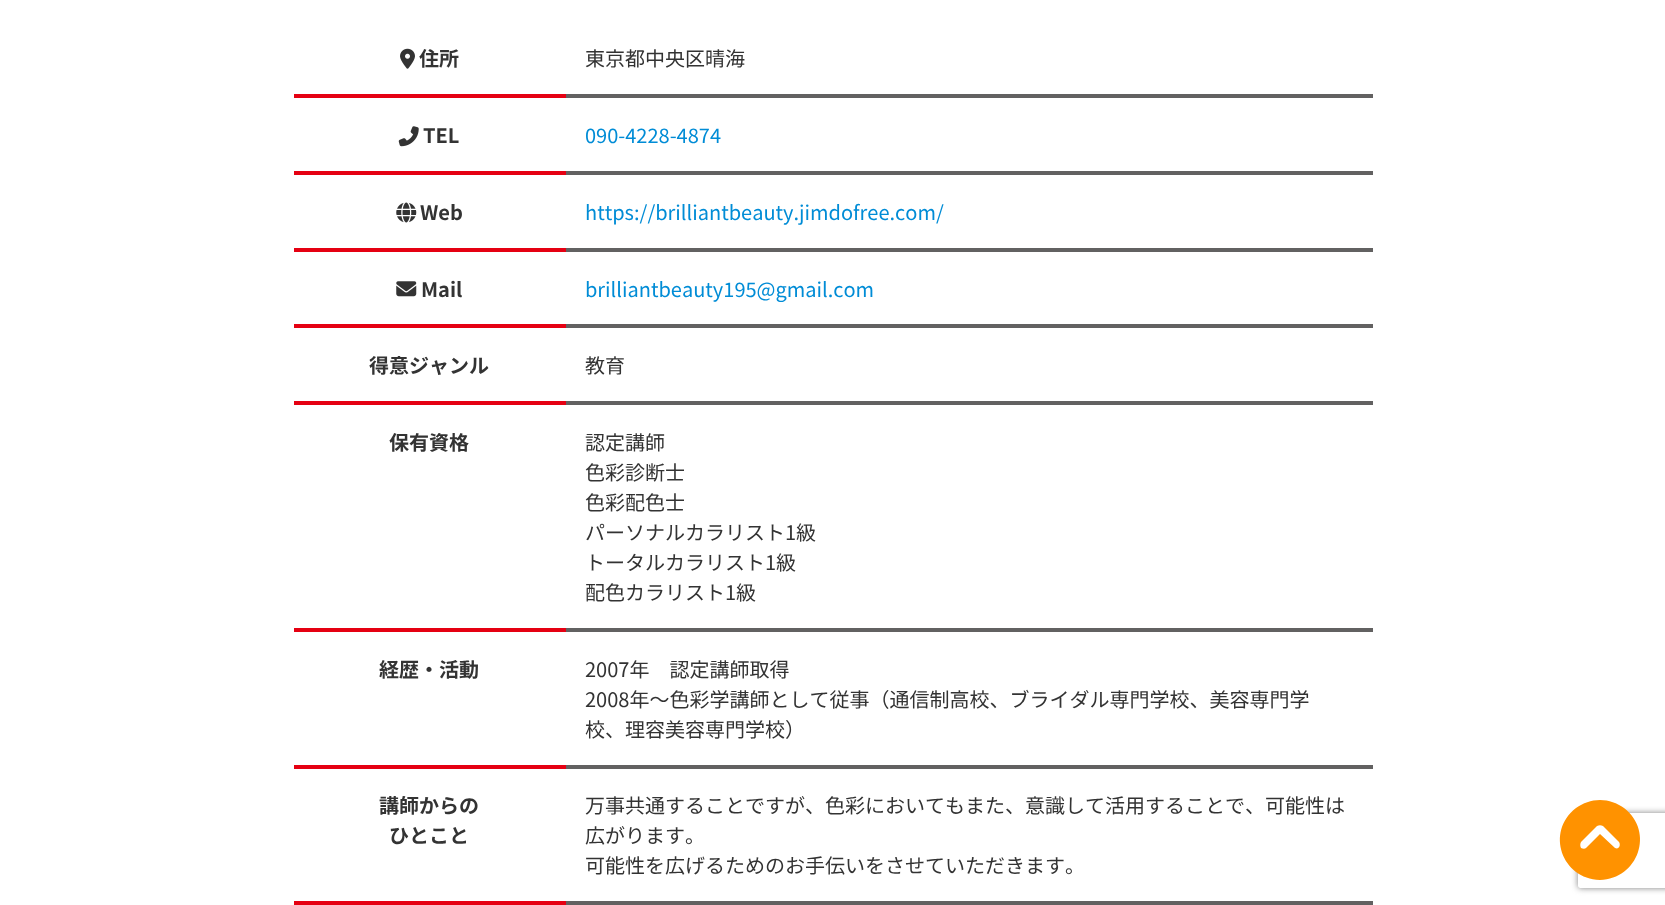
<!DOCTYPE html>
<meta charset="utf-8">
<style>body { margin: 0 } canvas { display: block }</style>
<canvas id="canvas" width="1665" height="905"></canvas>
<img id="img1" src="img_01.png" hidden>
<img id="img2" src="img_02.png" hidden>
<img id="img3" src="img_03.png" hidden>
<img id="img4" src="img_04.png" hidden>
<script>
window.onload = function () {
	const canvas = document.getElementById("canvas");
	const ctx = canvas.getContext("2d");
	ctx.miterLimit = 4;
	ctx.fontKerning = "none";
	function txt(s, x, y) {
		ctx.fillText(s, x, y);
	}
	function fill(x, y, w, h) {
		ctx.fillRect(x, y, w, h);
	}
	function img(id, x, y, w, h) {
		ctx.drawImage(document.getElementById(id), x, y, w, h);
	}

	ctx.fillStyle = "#FFFFFF";
	fill(0, 0, 1665, 905);
	ctx.fillStyle = "#626161";
	fill(563, 94, 810, 4);
	ctx.fillStyle = "#E50012";
	fill(294, 94, 272, 4);
	img("img1", 400, 48, 15, 21);
	ctx.fillStyle = "#626161";
	fill(563, 171, 810, 4);
	ctx.fillStyle = "#E50012";
	fill(294, 171, 272, 4);
	img("img2", 398, 126, 21, 21);
	ctx.fillStyle = "#626161";
	fill(563, 248, 810, 4);
	ctx.fillStyle = "#E50012";
	fill(294, 248, 272, 4);
	img("img3", 396, 202, 21, 21);
	ctx.fillStyle = "#626161";
	fill(563, 324, 810, 4);
	ctx.fillStyle = "#E50012";
	fill(294, 324, 272, 4);
	img("img4", 396, 281, 21, 16);
	ctx.fillStyle = "#626161";
	fill(563, 401, 810, 4);
	ctx.fillStyle = "#E50012";
	fill(294, 401, 272, 4);
	ctx.fillStyle = "#626161";
	fill(563, 628, 810, 4);
	ctx.fillStyle = "#E50012";
	fill(294, 628, 272, 4);
	ctx.fillStyle = "#626161";
	fill(563, 765, 810, 4);
	ctx.fillStyle = "#E50012";
	fill(294, 765, 272, 4);
	ctx.fillStyle = "#626161";
	fill(563, 901, 810, 4);
	ctx.fillStyle = "#E50012";
	fill(294, 901, 272, 4);
	ctx.save();
	ctx.beginPath();
	ctx.moveTo(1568, 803);
	ctx.lineTo(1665, 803);
	ctx.lineTo(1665, 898);
	ctx.lineTo(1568, 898);
	ctx.closePath();
	ctx.moveTo(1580.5, 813);
	ctx.lineTo(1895.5, 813);
	ctx.bezierCurveTo(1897, 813, 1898, 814, 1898, 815.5);
	ctx.lineTo(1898, 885.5);
	ctx.bezierCurveTo(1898, 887, 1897, 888, 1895.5, 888);
	ctx.lineTo(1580.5, 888);
	ctx.bezierCurveTo(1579, 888, 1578, 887, 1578, 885.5);
	ctx.lineTo(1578, 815.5);
	ctx.bezierCurveTo(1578, 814, 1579, 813, 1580.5, 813);
	ctx.closePath();
	ctx.clip("evenodd");
	ctx.fillStyle = "#808080";
	ctx.filter = "blur(3px)";
	ctx.beginPath();
	ctx.roundRect(1578, 813, 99, 75, 2.5);
	ctx.fill();
	ctx.filter = "none";
	ctx.restore();
	ctx.fillStyle = "#FF9200";
	ctx.beginPath();
	ctx.moveTo(1600, 880);
	ctx.bezierCurveTo(1638, 879, 1655, 832, 1624, 808);
	ctx.bezierCurveTo(1617, 803, 1609, 800, 1600, 800);
	ctx.bezierCurveTo(1591, 800, 1583, 803, 1576, 808);
	ctx.bezierCurveTo(1545, 832, 1562, 879, 1600, 880);
	ctx.closePath();
	ctx.moveTo(1619, 842);
	ctx.bezierCurveTo(1621, 845, 1619, 850, 1615, 848);
	ctx.lineTo(1600, 834);
	ctx.lineTo(1586, 848);
	ctx.bezierCurveTo(1585, 849, 1583, 849, 1581, 848);
	ctx.bezierCurveTo(1580, 846, 1580, 844, 1581, 842);
	ctx.lineTo(1597, 826);
	ctx.bezierCurveTo(1599, 825, 1601, 825, 1603, 826);
	ctx.closePath();
	ctx.fill();
	ctx.font = "bold 20px Noto Sans JP";
	ctx.fillStyle = "#333333";
	txt("住所", 419, 66);
	ctx.font = "20px Noto Sans JP";
	txt("東京都中央区晴海", 585, 66);
	ctx.font = "bold 20px Noto Sans JP";
	txt("TEL", 423, 143);
	ctx.font = "20px Noto Sans JP";
	ctx.fillStyle = "#008CD6";
	txt("090-4228-4874", 585, 143);
	ctx.font = "bold 20px Noto Sans JP";
	ctx.fillStyle = "#333333";
	txt("Web", 420, 220);
	ctx.font = "20px Noto Sans JP";
	ctx.fillStyle = "#008CD6";
	txt("https://brilliantbeauty.jimdofree.com/", 585, 220);
	ctx.font = "bold 20px Noto Sans JP";
	ctx.fillStyle = "#333333";
	txt("Mail", 421, 297);
	ctx.font = "20px Noto Sans JP";
	ctx.fillStyle = "#008CD6";
	txt("brilliantbeauty195@gmail.com", 585, 297);
	ctx.font = "bold 20px Noto Sans JP";
	ctx.fillStyle = "#333333";
	txt("得意ジャンル", 369, 373);
	ctx.font = "20px Noto Sans JP";
	txt("教育", 585, 373);
	ctx.font = "bold 20px Noto Sans JP";
	txt("保有資格", 389, 450);
	ctx.font = "20px Noto Sans JP";
	txt("認定講師", 585, 450);
	txt("色彩診断士", 585, 480);
	txt("色彩配色士", 585, 510);
	txt("パーソナルカラリスト1級", 585, 540);
	txt("トータルカラリスト1級", 585, 570);
	txt("配色カラリスト1級", 585, 600);
	ctx.font = "bold 20px Noto Sans JP";
	txt("経歴・活動", 379, 677);
	ctx.font = "20px Noto Sans JP";
	txt("2007年　認定講師取得", 585, 677);
	txt("2008年～色彩学講師として従事（通信制高校、ブライダル専門学校、美容専門学", 585, 707);
	txt("校、理容美容専門学校）", 585, 737);
	ctx.font = "bold 20px Noto Sans JP";
	txt("講師からの", 379, 813);
	txt("ひとこと", 389, 843);
	ctx.font = "20px Noto Sans JP";
	txt("万事共通することですが、色彩においてもまた、意識して活用すること", 585, 813);
	txt("で、可能性は", 1225, 813);
	txt("広がります。", 585, 843);
	txt("可能性を広げるためのお手伝いをさせていただきます。", 585, 873);
};
</script>
